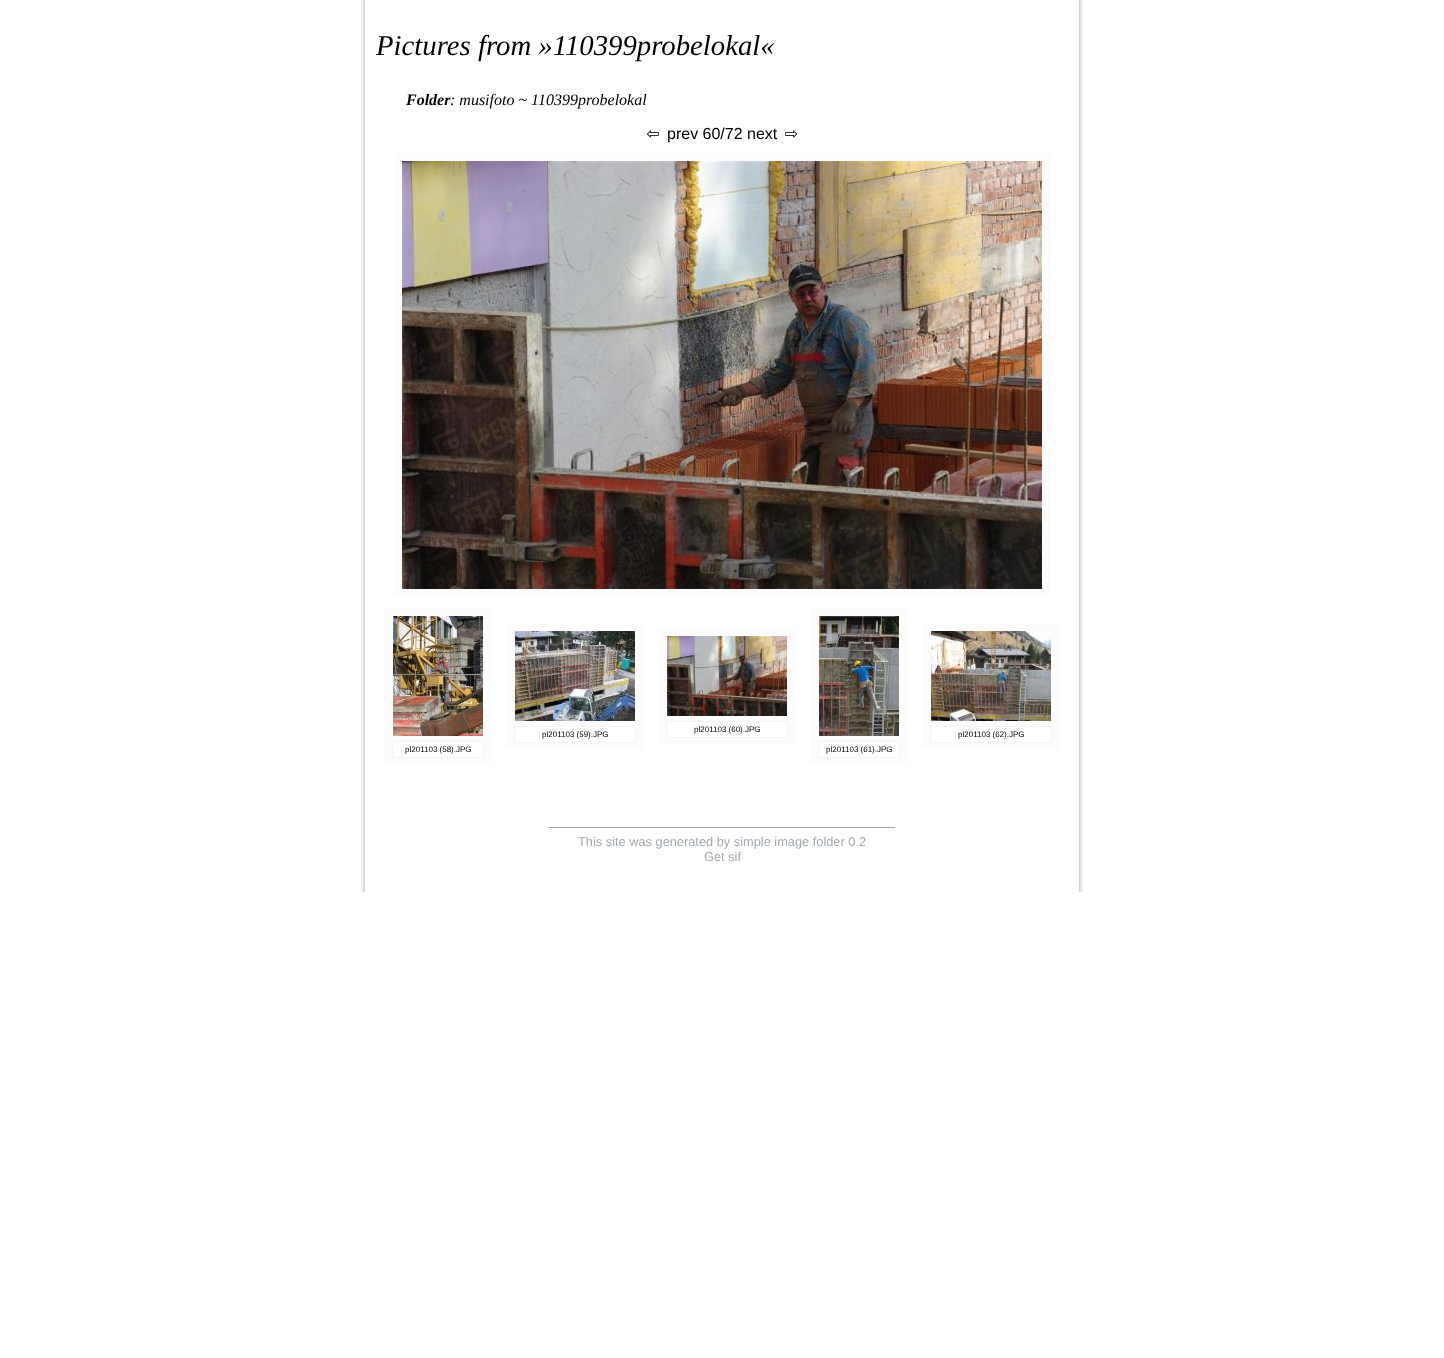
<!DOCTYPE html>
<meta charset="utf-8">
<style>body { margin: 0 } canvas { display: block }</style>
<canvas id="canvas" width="1444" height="1358"></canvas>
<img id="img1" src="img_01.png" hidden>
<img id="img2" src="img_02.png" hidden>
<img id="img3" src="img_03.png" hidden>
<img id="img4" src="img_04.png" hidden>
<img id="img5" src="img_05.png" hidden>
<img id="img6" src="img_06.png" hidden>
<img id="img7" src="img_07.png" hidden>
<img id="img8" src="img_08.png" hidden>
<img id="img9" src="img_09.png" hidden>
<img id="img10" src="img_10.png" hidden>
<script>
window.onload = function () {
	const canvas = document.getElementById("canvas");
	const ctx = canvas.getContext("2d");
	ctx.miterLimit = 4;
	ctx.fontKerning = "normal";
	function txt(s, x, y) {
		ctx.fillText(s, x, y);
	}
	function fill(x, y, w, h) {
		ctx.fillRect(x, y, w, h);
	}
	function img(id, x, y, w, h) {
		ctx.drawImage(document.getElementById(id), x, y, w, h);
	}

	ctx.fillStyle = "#FFFFFF";
	fill(0, 0, 1444, 1358);
	img("img1", 361, 0, 4, 892);
	img("img2", 647, 130, 12, 8);
	img("img3", 785, 130, 12, 8);
	ctx.fillStyle = "#FCFCFC";
	fill(394, 153, 656, 442);
	img("img4", 402, 161, 640, 428);
	fill(658, 628, 138, 116);
	img("img5", 667, 636, 120, 80);
	ctx.fillStyle = "#FFFFFF";
	ctx.beginPath();
	ctx.rect(666.5, 721.5, 121, 16);
	ctx.fill();
	ctx.strokeStyle = "#F4F4F4";
	ctx.stroke();
	ctx.fillStyle = "#FCFCFC";
	fill(506, 623, 138, 126);
	img("img6", 515, 631, 120, 90);
	ctx.fillStyle = "#FFFFFF";
	ctx.beginPath();
	ctx.rect(514.5, 726.5, 121, 16);
	ctx.fill();
	ctx.stroke();
	ctx.fillStyle = "#FCFCFC";
	fill(922, 623, 138, 126);
	img("img7", 931, 631, 120, 90);
	ctx.fillStyle = "#FFFFFF";
	ctx.beginPath();
	ctx.rect(930.5, 726.5, 121, 16);
	ctx.fill();
	ctx.stroke();
	ctx.fillStyle = "#FCFCFC";
	fill(384, 608, 108, 156);
	img("img8", 393, 616, 90, 120);
	ctx.fillStyle = "#FFFFFF";
	ctx.beginPath();
	ctx.rect(392.5, 741.5, 91, 16);
	ctx.fill();
	ctx.stroke();
	ctx.fillStyle = "#FCFCFC";
	fill(810, 608, 98, 156);
	img("img9", 819, 616, 80, 120);
	ctx.fillStyle = "#FFFFFF";
	ctx.beginPath();
	ctx.rect(818.5, 741.5, 81, 16);
	ctx.fill();
	ctx.stroke();
	ctx.fillStyle = "#A2AAB0";
	fill(549, 827, 346, 1);
	img("img10", 1079, 0, 4, 892);
	ctx.font = "italic 28.75px Liberation Serif";
	ctx.fillStyle = "#000000";
	txt("Pictures from »110399probelokal«", 376, 55);
	ctx.font = "italic bold 16px Liberation Serif";
	txt("Folder", 406, 105);
	ctx.font = "italic 16px Liberation Serif";
	txt(": musifoto ~ 110399probelokal", 450, 105);
	ctx.font = "16px Liberation Sans";
	txt("prev 60/72 next", 667, 139);
	ctx.font = "8px Liberation Sans";
	txt("pl201103 (60).JPG", 694, 732);
	txt("pl201103 (59).JPG", 542, 737);
	txt("pl201103 (62).JPG", 958, 737);
	txt("pl201103 (58).JPG", 405, 752);
	txt("pl201103 (61).JPG", 826, 752);
	ctx.font = "12.8px Liberation Sans";
	ctx.fillStyle = "#A2AAB0";
	txt("This site was generated by simple image folder 0.2", 578, 846);
	txt("Get sif", 704, 861);
};
</script>
